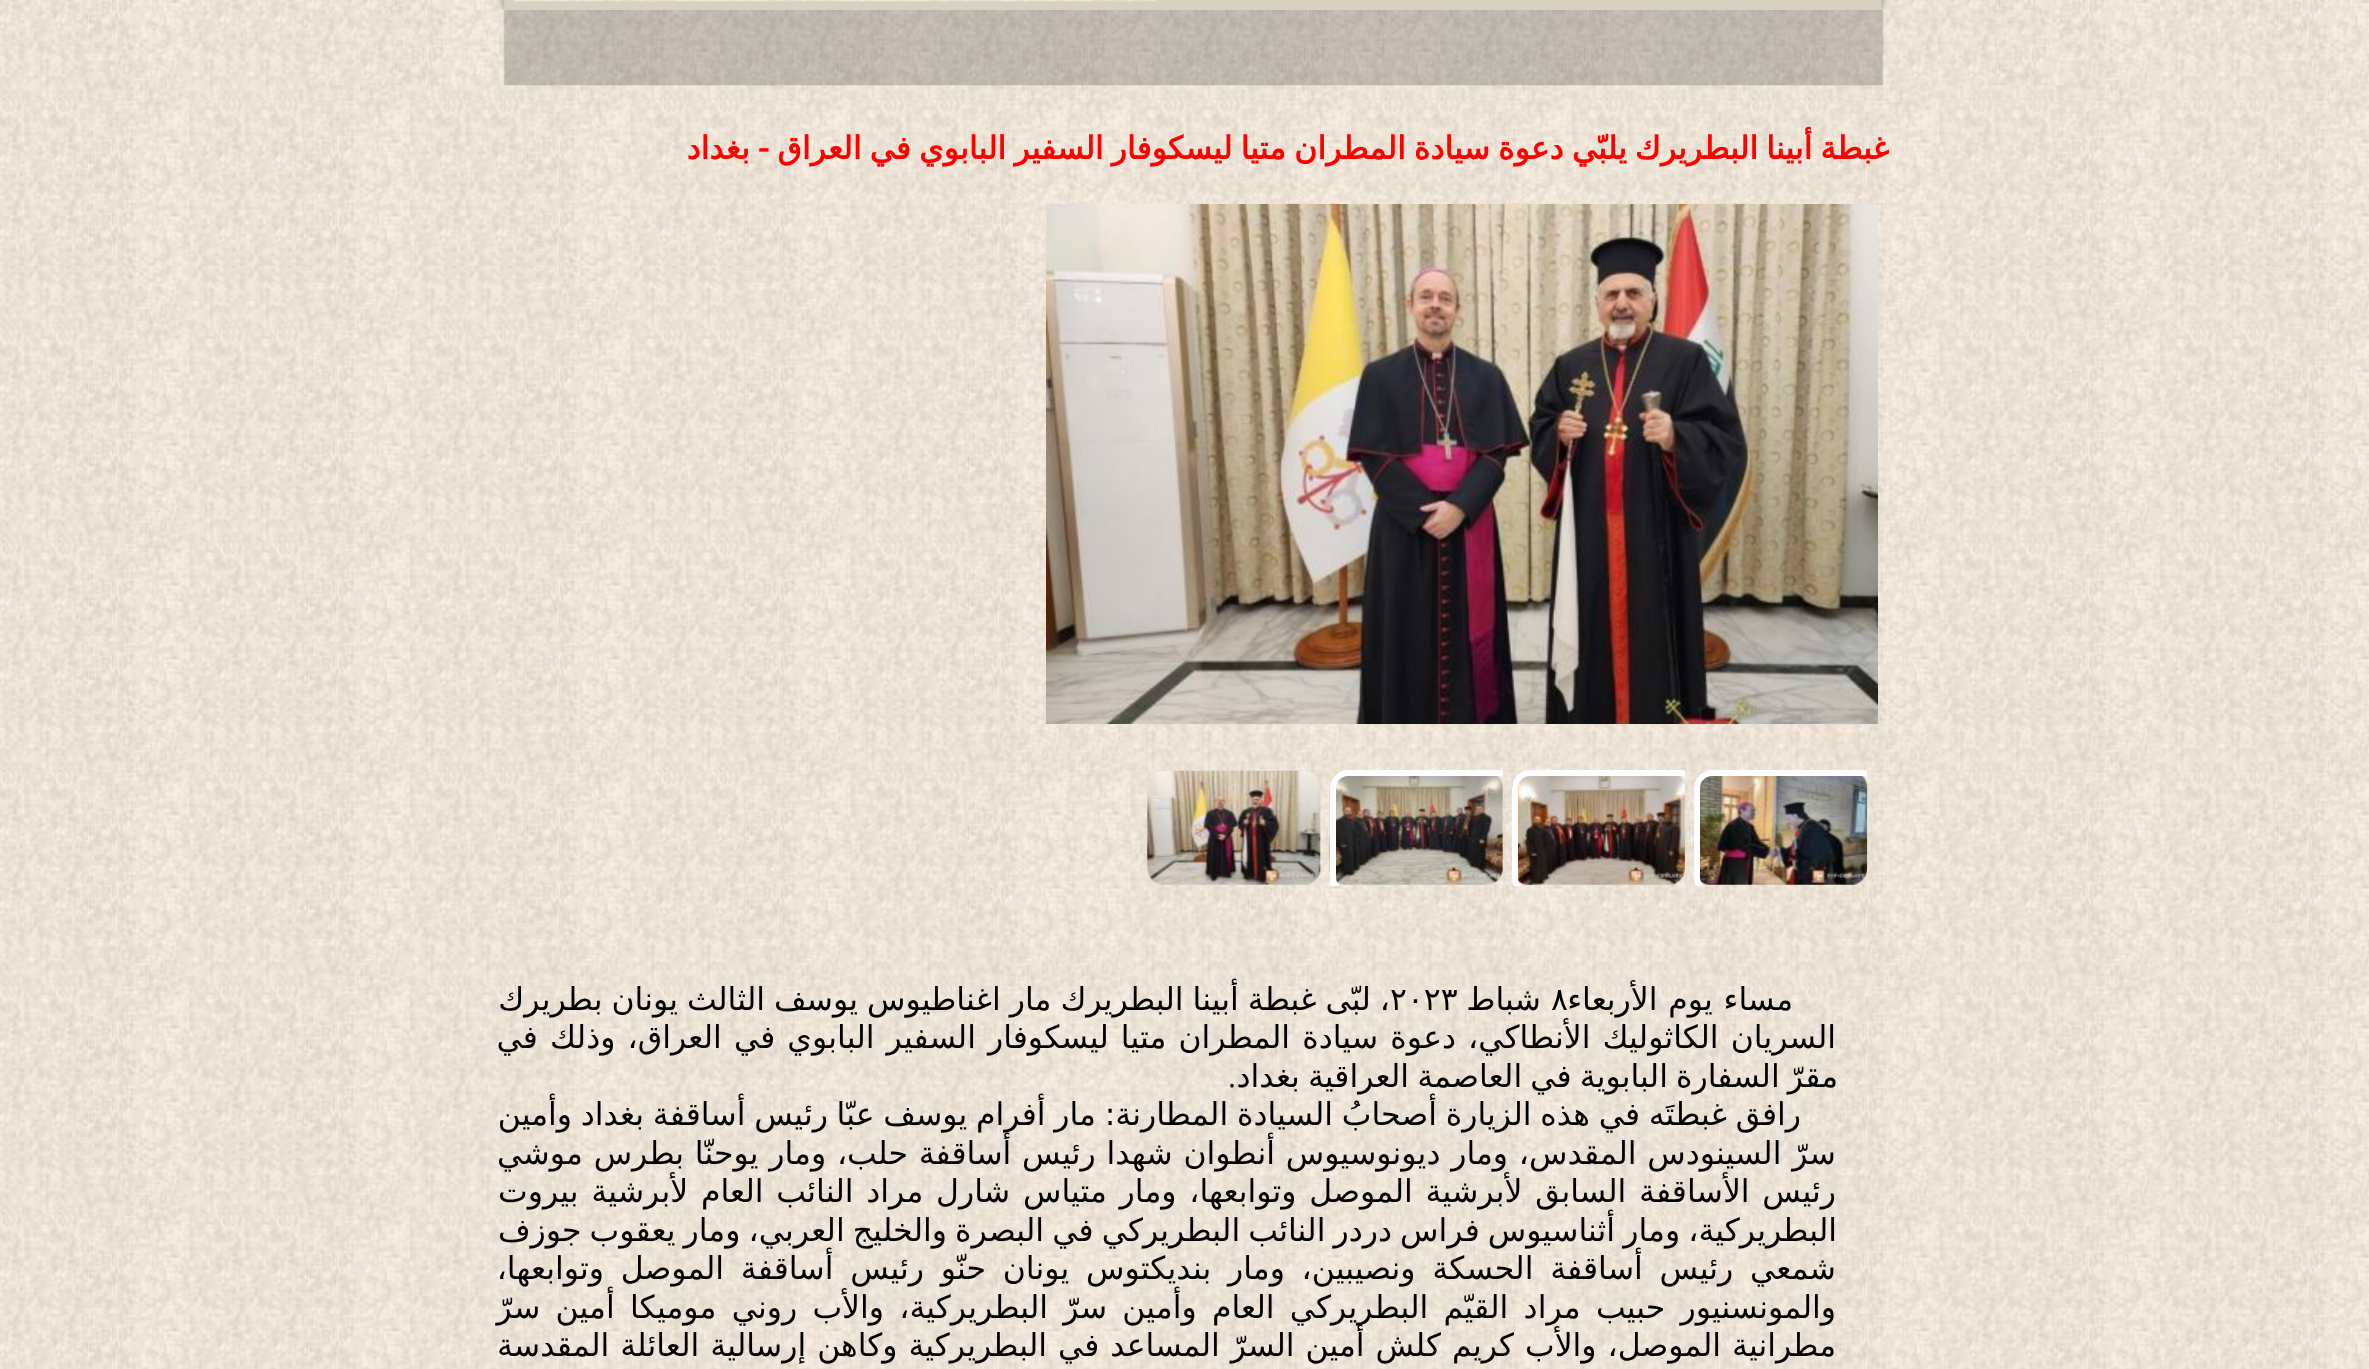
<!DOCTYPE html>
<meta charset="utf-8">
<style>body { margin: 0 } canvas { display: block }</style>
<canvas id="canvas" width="2369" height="1369"></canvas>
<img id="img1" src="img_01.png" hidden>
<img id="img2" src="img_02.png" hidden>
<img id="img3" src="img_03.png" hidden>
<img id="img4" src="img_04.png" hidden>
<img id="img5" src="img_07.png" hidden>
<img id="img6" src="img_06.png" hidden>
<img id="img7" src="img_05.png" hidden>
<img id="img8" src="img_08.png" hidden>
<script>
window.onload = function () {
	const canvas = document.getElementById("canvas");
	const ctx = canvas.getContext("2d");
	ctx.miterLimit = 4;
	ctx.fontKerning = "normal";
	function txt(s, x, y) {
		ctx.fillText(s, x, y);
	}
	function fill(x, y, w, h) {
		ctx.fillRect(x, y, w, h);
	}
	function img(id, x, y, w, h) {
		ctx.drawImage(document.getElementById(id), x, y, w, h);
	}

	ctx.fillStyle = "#FFFFFF";
	fill(0, 0, 2369, 1369);
	img("img1", 0, 0, 2369, 1369);
	img("img2", 309, 0, 1751, 10);
	img("img3", 309, 10, 1751, 76);
	img("img4", 1046, 204, 832, 520);
	img("img5", 1329, 770, 174, 115);
	ctx.save();
	ctx.beginPath();
	ctx.rect(1330, 770, 173, 116);
	ctx.clip();
	ctx.beginPath();
	ctx.roundRect(1333, 773, 180, 120, 15);
	ctx.strokeStyle = "#FFFFFF";
	ctx.lineWidth = 6;
	ctx.stroke();
	ctx.restore();
	img("img6", 1512, 770, 173, 115);
	ctx.save();
	ctx.beginPath();
	ctx.rect(1512, 770, 173, 116);
	ctx.clip();
	ctx.beginPath();
	ctx.roundRect(1515, 773, 180, 120, 15);
	ctx.strokeStyle = "#FFFFFF";
	ctx.lineWidth = 6;
	ctx.stroke();
	ctx.restore();
	img("img7", 1694, 770, 174, 115);
	ctx.save();
	ctx.beginPath();
	ctx.rect(1694, 770, 173, 116);
	ctx.clip();
	ctx.beginPath();
	ctx.roundRect(1697, 773, 180, 120, 15);
	ctx.strokeStyle = "#FFFFFF";
	ctx.lineWidth = 6;
	ctx.stroke();
	ctx.restore();
	img("img8", 1147, 770, 174, 115);
	ctx.wordSpacing = "-1.9px";
	ctx.direction = "rtl";
	ctx.font = "bold 31.5px DejaVu Sans";
	ctx.fillStyle = "#FF0000";
	txt("غبطة أبينا البطريرك يلبّي دعوة سيادة المطران متيا ليسكوفار السفير البابوي في العراق - بغداد", 1889, 159);
	ctx.wordSpacing = "0.75px";
	ctx.font = "31.5px DejaVu Sans";
	ctx.fillStyle = "#000000";
	txt("مساء يوم الأربعاء", 1793, 1010);
	ctx.wordSpacing = "0px";
	ctx.direction = "ltr";
	txt("٨", 1551, 1010);
	ctx.direction = "rtl";
	txt("شباط", 1541, 1010);
	ctx.wordSpacing = "-1px";
	txt("، لبّى غبطة أبينا البطريرك مار اغناطيوس يوسف الثالث يونان بطريرك", 1390, 1010);
	ctx.wordSpacing = "0px";
	ctx.direction = "ltr";
	txt("٢٠٢٣", 1390, 1010);
	ctx.wordSpacing = "2.1px";
	ctx.direction = "rtl";
	txt("السريان الكاثوليك الأنطاكي، دعوة سيادة المطران متيا ليسكوفار السفير البابوي في العراق، وذلك في", 1836, 1048);
	ctx.wordSpacing = "-1.9px";
	txt("مقرّ السفارة البابوية في العاصمة العراقية بغداد", 1838, 1087);
	ctx.wordSpacing = "0px";
	ctx.direction = "ltr";
	ctx.font = "31.5px Liberation Serif";
	txt(".", 1228, 1087);
	ctx.wordSpacing = "-1.25px";
	ctx.direction = "rtl";
	ctx.font = "31.5px DejaVu Sans";
	txt("رافق غبطتَه في هذه الزيارة أصحابُ السيادة المطارنة: مار أفرام يوسف عبّا رئيس أساقفة بغداد وأمين", 1801, 1125);
	ctx.wordSpacing = "0.75px";
	txt("سرّ السينودس المقدس، ومار ديونوسيوس أنطوان شهدا رئيس أساقفة حلب، ومار يوحنّا بطرس موشي", 1836, 1164);
	ctx.wordSpacing = "2.75px";
	txt("رئيس الأساقفة السابق لأبرشية الموصل وتوابعها، ومار متياس شارل مراد النائب العام لأبرشية بيروت", 1836, 1202);
	ctx.wordSpacing = "-1.9px";
	txt("البطريركية، ومار أثناسيوس فراس دردر النائب البطريركي في البصرة والخليج العربي، ومار يعقوب جوزف", 1837, 1241);
	ctx.wordSpacing = "6.75px";
	txt("شمعي رئيس أساقفة الحسكة ونصيبين، ومار بنديكتوس يونان حنّو رئيس أساقفة الموصل وتوابعها،", 1836, 1279);
	ctx.wordSpacing = "5.25px";
	txt("والمونسنيور حبيب مراد القيّم البطريركي العام وأمين سرّ البطريركية، والأب روني موميكا أمين سرّ", 1836, 1318);
	ctx.wordSpacing = "0.9px";
	txt("مطرانية الموصل، والأب كريم كلش أمين السرّ المساعد في البطريركية وكاهن إرسالية العائلة المقدسة", 1836, 1356);
};
</script>
